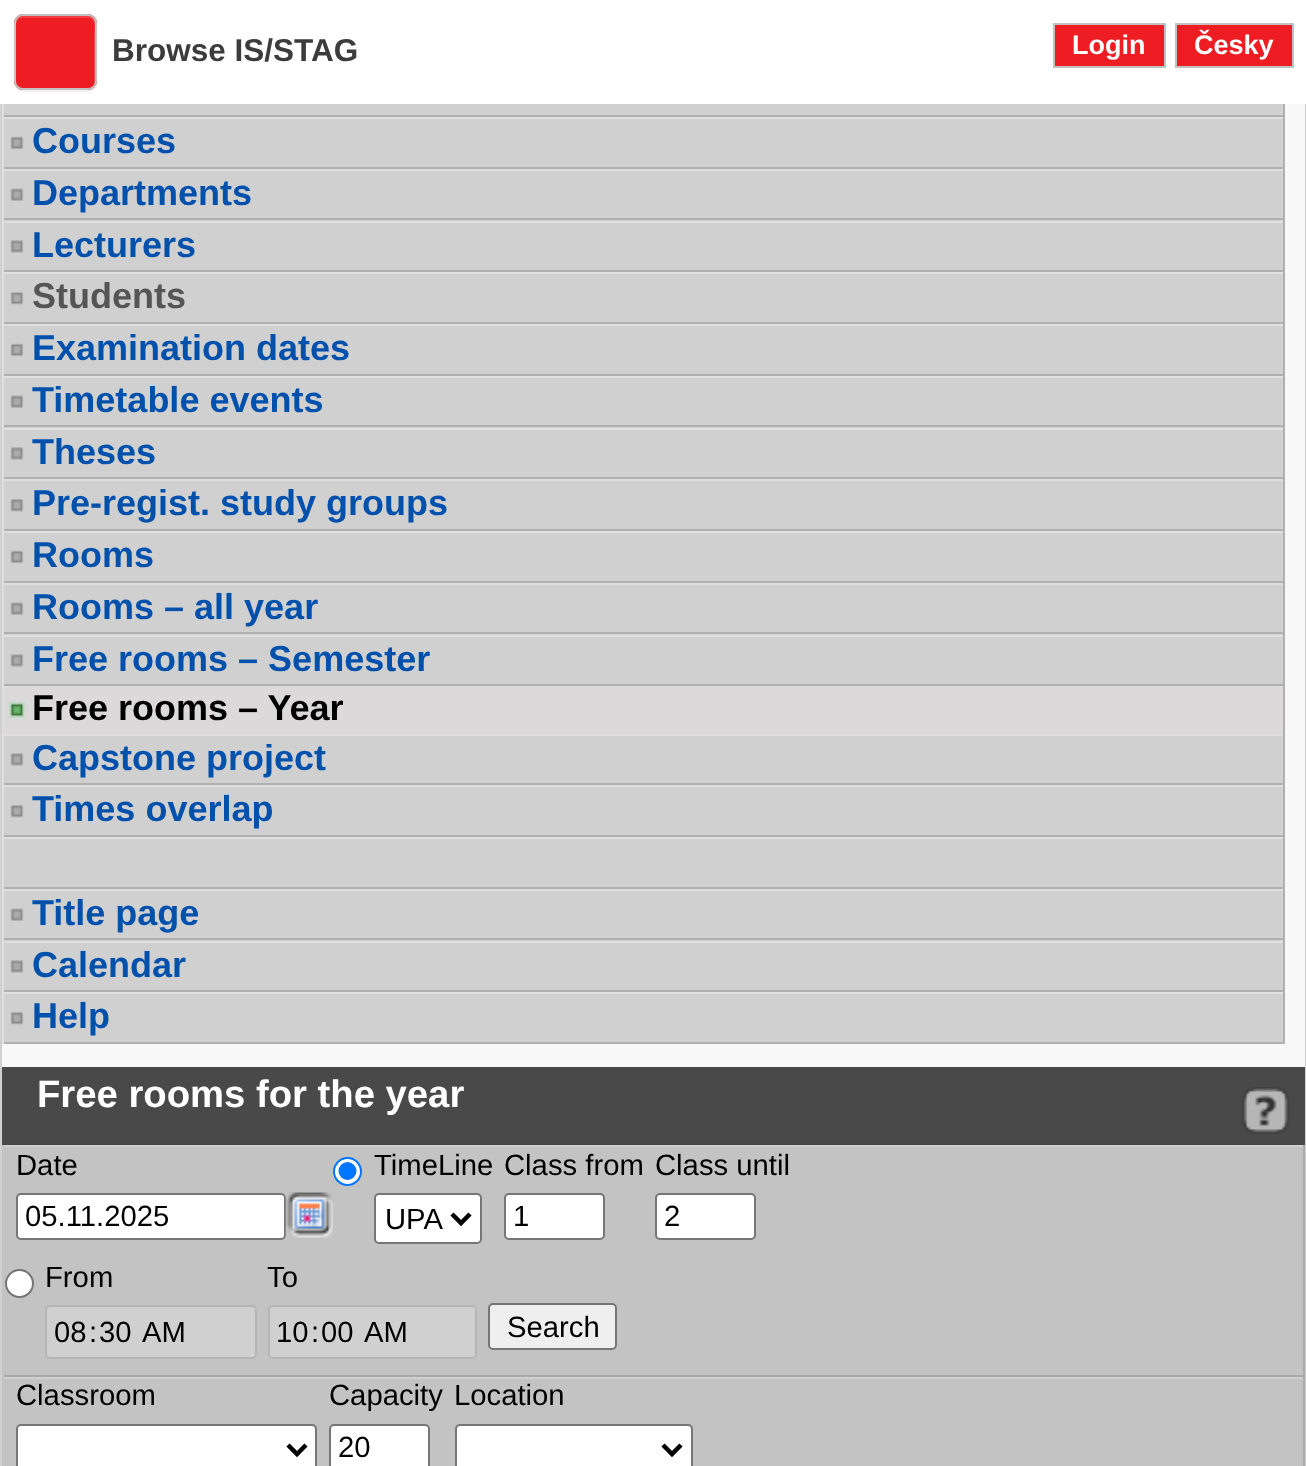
<!DOCTYPE html>
<meta charset="utf-8">
<style>body { margin: 0 } canvas { display: block }</style>
<canvas id="canvas" width="1306" height="1466"></canvas>
<img id="img1" src="img_01.png" hidden>
<img id="img2" src="img_02.png" hidden>
<img id="img3" src="img_03.png" hidden>
<img id="img4" src="img_04.png" hidden>
<img id="img5" src="img_05.png" hidden>
<img id="img6" src="img_06.png" hidden>
<img id="img7" src="img_07.png" hidden>
<img id="img8" src="img_08.png" hidden>
<script>
window.onload = function () {
	const canvas = document.getElementById("canvas");
	const ctx = canvas.getContext("2d");
	ctx.miterLimit = 4;
	ctx.fontKerning = "normal";
	function txt(s, x, y) {
		ctx.fillText(s, x, y);
	}
	function fill(x, y, w, h) {
		ctx.fillRect(x, y, w, h);
	}
	function round(x, y, w, h, r) {
		ctx.beginPath();
		ctx.roundRect(x, y, w, h, r);
		ctx.fill();
	}
	function img(id, x, y, w, h) {
		ctx.drawImage(document.getElementById(id), x, y, w, h);
	}

	ctx.fillStyle = "#F8F8F8";
	fill(0, 0, 1306, 1466);
	ctx.strokeStyle = "#D0D0D0";
	ctx.lineWidth = 2;
	ctx.strokeRect(1, 64, 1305, 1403);
	ctx.fillStyle = "#FFFFFF";
	fill(0, 0, 1306, 104);
	ctx.fillStyle = "rgba(0, 0, 0, 0.07)";
	ctx.filter = "blur(1px)";
	ctx.beginPath();
	ctx.roundRect(14, 16, 83, 76, 9);
	ctx.fill();
	ctx.filter = "none";
	ctx.fillStyle = "#EE1D23";
	round(14, 14, 83, 76, 9);
	ctx.fillStyle = "#F13F44";
	ctx.beginPath();
	ctx.moveTo(22, 18);
	ctx.lineTo(89, 18);
	ctx.bezierCurveTo(96, 20, 94, 30, 94, 35);
	ctx.lineTo(94, 85);
	ctx.bezierCurveTo(95, 84, 95, 82, 95, 81);
	ctx.lineTo(95, 23);
	ctx.bezierCurveTo(95, 19, 92, 16, 88, 16);
	ctx.lineTo(23, 16);
	ctx.bezierCurveTo(19, 16, 16, 19, 16, 23);
	ctx.lineTo(16, 25);
	ctx.bezierCurveTo(16, 21, 19, 18, 22, 18);
	ctx.closePath();
	ctx.fill();
	ctx.beginPath();
	ctx.roundRect(15, 15, 81, 74, 8);
	ctx.strokeStyle = "#C5C0C0";
	ctx.stroke();
	ctx.fillStyle = "#EE1D23";
	ctx.beginPath();
	ctx.rect(1054, 24, 111, 43);
	ctx.fill();
	ctx.stroke();
	ctx.beginPath();
	ctx.rect(1176, 24, 117, 43);
	ctx.fill();
	ctx.stroke();
	ctx.fillStyle = "#D0D0D0";
	fill(4, 104, 1279, 11);
	ctx.fillStyle = "#B0B0B0";
	fill(1283, 104, 2, 13);
	fill(2, 115, 1283, 2);
	ctx.fillStyle = "#DFDFDF";
	fill(2, 104, 2, 13);
	ctx.fillStyle = "#D0D0D0";
	fill(4, 119, 1279, 48);
	img("img1", 10, 136, 14, 14);
	ctx.fillStyle = "#DFDFDF";
	fill(2, 117, 1283, 2);
	ctx.fillStyle = "#B0B0B0";
	fill(1283, 117, 2, 52);
	fill(2, 167, 1283, 2);
	ctx.fillStyle = "#DFDFDF";
	fill(2, 117, 2, 52);
	ctx.fillStyle = "#D0D0D0";
	fill(4, 171, 1279, 50);
	img("img2", 10, 188, 14, 13);
	ctx.fillStyle = "#DFDFDF";
	fill(2, 169, 1283, 2);
	ctx.fillStyle = "#B0B0B0";
	fill(1283, 169, 2, 52);
	fill(2, 218, 1283, 2);
	ctx.fillStyle = "#DFDFDF";
	fill(2, 169, 2, 52);
	ctx.fillStyle = "#D0D0D0";
	fill(4, 223, 1279, 47);
	img("img3", 10, 240, 14, 13);
	ctx.fillStyle = "#DFDFDF";
	fill(2, 221, 1283, 2);
	ctx.fillStyle = "#B0B0B0";
	fill(1283, 221, 2, 51);
	fill(2, 270, 1283, 2);
	ctx.fillStyle = "#DFDFDF";
	fill(2, 221, 2, 51);
	ctx.fillStyle = "#D0D0D0";
	fill(4, 274, 1279, 48);
	img("img4", 10, 292, 14, 13);
	ctx.fillStyle = "#DFDFDF";
	fill(2, 272, 1283, 2);
	ctx.fillStyle = "#B0B0B0";
	fill(1283, 272, 2, 52);
	fill(2, 322, 1283, 2);
	ctx.fillStyle = "#DFDFDF";
	fill(2, 272, 2, 52);
	ctx.fillStyle = "#D0D0D0";
	fill(4, 326, 1279, 48);
	img("img1", 10, 343, 14, 14);
	ctx.fillStyle = "#DFDFDF";
	fill(2, 324, 1283, 2);
	ctx.fillStyle = "#B0B0B0";
	fill(1283, 324, 2, 52);
	fill(2, 374, 1283, 2);
	ctx.fillStyle = "#DFDFDF";
	fill(2, 324, 2, 52);
	ctx.fillStyle = "#D0D0D0";
	fill(4, 378, 1279, 50);
	img("img2", 10, 395, 14, 13);
	ctx.fillStyle = "#DFDFDF";
	fill(2, 376, 1283, 2);
	ctx.fillStyle = "#B0B0B0";
	fill(1283, 376, 2, 52);
	fill(2, 425, 1283, 2);
	ctx.fillStyle = "#DFDFDF";
	fill(2, 376, 2, 52);
	ctx.fillStyle = "#D0D0D0";
	fill(4, 430, 1279, 47);
	img("img3", 10, 447, 14, 13);
	ctx.fillStyle = "#DFDFDF";
	fill(2, 428, 1283, 2);
	ctx.fillStyle = "#B0B0B0";
	fill(1283, 428, 2, 51);
	fill(2, 477, 1283, 2);
	ctx.fillStyle = "#DFDFDF";
	fill(2, 428, 2, 51);
	ctx.fillStyle = "#D0D0D0";
	fill(4, 481, 1279, 48);
	img("img5", 10, 499, 14, 13);
	ctx.fillStyle = "#DFDFDF";
	fill(2, 479, 1283, 2);
	ctx.fillStyle = "#B0B0B0";
	fill(1283, 479, 2, 52);
	fill(2, 529, 1283, 2);
	ctx.fillStyle = "#DFDFDF";
	fill(2, 479, 2, 52);
	ctx.fillStyle = "#D0D0D0";
	fill(4, 533, 1279, 48);
	img("img1", 10, 550, 14, 14);
	ctx.fillStyle = "#DFDFDF";
	fill(2, 531, 1283, 2);
	ctx.fillStyle = "#B0B0B0";
	fill(1283, 531, 2, 52);
	fill(2, 581, 1283, 2);
	ctx.fillStyle = "#DFDFDF";
	fill(2, 531, 2, 52);
	ctx.fillStyle = "#D0D0D0";
	fill(4, 585, 1279, 50);
	img("img2", 10, 602, 14, 13);
	ctx.fillStyle = "#DFDFDF";
	fill(2, 583, 1283, 2);
	ctx.fillStyle = "#B0B0B0";
	fill(1283, 583, 2, 52);
	fill(2, 632, 1283, 2);
	ctx.fillStyle = "#DFDFDF";
	fill(2, 583, 2, 52);
	ctx.fillStyle = "#D0D0D0";
	fill(4, 637, 1279, 47);
	img("img3", 10, 654, 14, 13);
	ctx.fillStyle = "#DFDFDF";
	fill(2, 635, 1283, 2);
	ctx.fillStyle = "#B0B0B0";
	fill(1283, 635, 2, 99);
	fill(2, 684, 1283, 2);
	ctx.fillStyle = "#DFDFDF";
	fill(2, 635, 2, 99);
	ctx.fillStyle = "#DBD9D9";
	fill(4, 686, 1279, 48);
	img("img6", 8, 701, 18, 18);
	ctx.fillStyle = "#D0D0D0";
	fill(4, 736, 1279, 47);
	img("img3", 10, 753, 14, 13);
	ctx.fillStyle = "#DFDFDF";
	fill(2, 734, 1283, 2);
	ctx.fillStyle = "#B0B0B0";
	fill(1283, 734, 2, 51);
	fill(2, 783, 1283, 2);
	ctx.fillStyle = "#DFDFDF";
	fill(2, 734, 2, 51);
	ctx.fillStyle = "#D0D0D0";
	fill(4, 787, 1279, 48);
	img("img5", 10, 805, 14, 13);
	ctx.fillStyle = "#DFDFDF";
	fill(2, 785, 1283, 2);
	ctx.fillStyle = "#B0B0B0";
	fill(1283, 785, 2, 52);
	fill(2, 835, 1283, 2);
	ctx.fillStyle = "#DFDFDF";
	fill(2, 785, 2, 52);
	ctx.fillStyle = "#D0D0D0";
	fill(4, 839, 1279, 48);
	ctx.fillStyle = "#DFDFDF";
	fill(2, 837, 1283, 2);
	ctx.fillStyle = "#B0B0B0";
	fill(1283, 837, 2, 52);
	fill(2, 887, 1283, 2);
	ctx.fillStyle = "#DFDFDF";
	fill(2, 837, 2, 52);
	ctx.fillStyle = "#D0D0D0";
	fill(4, 891, 1279, 50);
	img("img2", 10, 908, 14, 13);
	ctx.fillStyle = "#DFDFDF";
	fill(2, 889, 1283, 2);
	ctx.fillStyle = "#B0B0B0";
	fill(1283, 889, 2, 52);
	fill(2, 938, 1283, 2);
	ctx.fillStyle = "#DFDFDF";
	fill(2, 889, 2, 52);
	ctx.fillStyle = "#D0D0D0";
	fill(4, 943, 1279, 47);
	img("img3", 10, 960, 14, 13);
	ctx.fillStyle = "#DFDFDF";
	fill(2, 941, 1283, 2);
	ctx.fillStyle = "#B0B0B0";
	fill(1283, 941, 2, 51);
	fill(2, 990, 1283, 2);
	ctx.fillStyle = "#DFDFDF";
	fill(2, 941, 2, 51);
	ctx.fillStyle = "#D0D0D0";
	fill(4, 994, 1279, 48);
	img("img5", 10, 1012, 14, 13);
	ctx.fillStyle = "#DFDFDF";
	fill(2, 992, 1283, 2);
	ctx.fillStyle = "#B0B0B0";
	fill(1283, 992, 2, 52);
	fill(2, 1042, 1283, 2);
	ctx.fillStyle = "#DFDFDF";
	fill(2, 992, 2, 52);
	ctx.fillStyle = "#494949";
	fill(2, 1067, 1303, 78);
	img("img7", 1242, 1087, 47, 47);
	ctx.fillStyle = "#C3C3C3";
	fill(4, 1147, 1299, 228);
	ctx.fillStyle = "#D0D0D0";
	fill(2, 1145, 1303, 2);
	ctx.fillStyle = "#AAAAAA";
	fill(1303, 1145, 2, 232);
	fill(2, 1375, 1303, 2);
	ctx.fillStyle = "#C3C3C3";
	fill(2, 1145, 2, 232);
	ctx.fillStyle = "#FFFFFF";
	ctx.beginPath();
	ctx.roundRect(17, 1194, 268, 45, 4);
	ctx.fill();
	ctx.strokeStyle = "#767676";
	ctx.stroke();
	img("img8", 285, 1192, 48, 46);
	ctx.beginPath();
	ctx.arc(347.5, 1171.5, 13.5, 0, Math.PI * 2);
	ctx.fill();
	ctx.strokeStyle = "#0075FF";
	ctx.stroke();
	ctx.fillStyle = "#0075FF";
	ctx.beginPath();
	ctx.arc(347.5, 1171, 9, 0, Math.PI * 2);
	ctx.fill();
	ctx.fillStyle = "#FFFFFF";
	ctx.beginPath();
	ctx.roundRect(375, 1194, 106, 49, 4);
	ctx.fill();
	ctx.strokeStyle = "#767676";
	ctx.stroke();
	ctx.beginPath();
	ctx.moveTo(452, 1214);
	ctx.lineTo(461, 1223);
	ctx.lineTo(470, 1214);
	ctx.strokeStyle = "#000000";
	ctx.lineWidth = 4.5;
	ctx.stroke();
	ctx.beginPath();
	ctx.roundRect(505, 1194, 99, 45, 4);
	ctx.fill();
	ctx.strokeStyle = "#767676";
	ctx.lineWidth = 2;
	ctx.stroke();
	ctx.beginPath();
	ctx.roundRect(656, 1194, 99, 45, 4);
	ctx.fill();
	ctx.stroke();
	ctx.beginPath();
	ctx.arc(19.5, 1283.5, 13.5, 0, Math.PI * 2);
	ctx.fill();
	ctx.stroke();
	ctx.fillStyle = "#D0D0D0";
	round(45, 1305, 212, 54, 5);
	ctx.beginPath();
	ctx.roundRect(46, 1306, 210, 52, 4);
	ctx.strokeStyle = "rgba(118, 118, 118, 0.3)";
	ctx.stroke();
	round(268, 1305, 209, 54, 5);
	ctx.beginPath();
	ctx.roundRect(269, 1306, 207, 52, 4);
	ctx.stroke();
	ctx.fillStyle = "#EFEFEF";
	ctx.beginPath();
	ctx.roundRect(489, 1304, 127, 45, 4);
	ctx.fill();
	ctx.strokeStyle = "#767676";
	ctx.stroke();
	ctx.fillStyle = "#C3C3C3";
	fill(4, 1379, 1299, 87);
	ctx.fillStyle = "#D0D0D0";
	fill(2, 1377, 1303, 2);
	ctx.fillStyle = "#AAAAAA";
	fill(1303, 1377, 2, 89);
	ctx.fillStyle = "#C3C3C3";
	fill(2, 1377, 2, 89);
	ctx.fillStyle = "#FFFFFF";
	ctx.beginPath();
	ctx.roundRect(17, 1425, 299, 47, 4);
	ctx.fill();
	ctx.stroke();
	ctx.beginPath();
	ctx.moveTo(288, 1445);
	ctx.lineTo(297, 1454);
	ctx.lineTo(306, 1445);
	ctx.strokeStyle = "#000000";
	ctx.lineWidth = 4.5;
	ctx.stroke();
	ctx.beginPath();
	ctx.roundRect(330, 1425, 99, 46, 4);
	ctx.fill();
	ctx.strokeStyle = "#767676";
	ctx.lineWidth = 2;
	ctx.stroke();
	ctx.beginPath();
	ctx.roundRect(456, 1425, 236, 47, 4);
	ctx.fill();
	ctx.stroke();
	ctx.beginPath();
	ctx.moveTo(663, 1445);
	ctx.lineTo(672, 1454);
	ctx.lineTo(681, 1445);
	ctx.strokeStyle = "#000000";
	ctx.lineWidth = 4.5;
	ctx.stroke();
	ctx.font = "bold 31.5px Liberation Sans";
	ctx.fillStyle = "#3C3C3C";
	txt("Browse IS/STAG", 112, 61);
	ctx.font = "bold 27px Liberation Sans";
	ctx.fillStyle = "#FFFFFF";
	txt("Login", 1072, 54);
	txt("Česky", 1194, 54);
	ctx.font = "bold 36px Liberation Sans";
	ctx.fillStyle = "#0151AC";
	txt("Courses", 32, 153);
	txt("Departments", 32, 205);
	txt("Lecturers", 32, 257);
	ctx.fillStyle = "#555555";
	txt("Students", 32, 308);
	ctx.fillStyle = "#0151AC";
	txt("Examination dates", 32, 360);
	txt("Timetable events", 32, 412);
	txt("Theses", 32, 464);
	txt("Pre-regist. study groups", 32, 515);
	txt("Rooms", 32, 567);
	txt("Rooms – all year", 32, 619);
	txt("Free rooms – Semester", 32, 671);
	ctx.fillStyle = "#000000";
	txt("Free rooms – Year", 32, 720);
	ctx.fillStyle = "#0151AC";
	txt("Capstone project", 32, 770);
	txt("Times overlap", 32, 821);
	txt("Title page", 32, 925);
	txt("Calendar", 32, 977);
	txt("Help", 32, 1028);
	ctx.font = "bold 38.25px Liberation Sans";
	ctx.fillStyle = "#FFFFFF";
	txt("Free rooms for the year", 37, 1107);
	ctx.font = "29.25px Liberation Sans";
	ctx.fillStyle = "#000000";
	txt("Date", 16, 1175);
	txt("05.11.2025", 25, 1226);
	txt("TimeLine", 374, 1175);
	txt("UPA", 385, 1229);
	txt("Class from", 504, 1175);
	txt("1", 513, 1226);
	txt("Class until", 655, 1175);
	txt("2", 664, 1226);
	txt("From", 45, 1287);
	txt("08", 54, 1342);
	txt(":", 89, 1342);
	txt("30", 99, 1342);
	txt("AM", 142, 1342);
	txt("To", 267, 1287);
	txt("10", 276, 1342);
	txt(":", 311, 1342);
	txt("00", 321, 1342);
	txt("AM", 364, 1342);
	txt("Search", 507, 1337);
	txt("Classroom", 16, 1405);
	txt("Capacity", 329, 1405);
	txt("20", 338, 1457);
	txt("Location", 454, 1405);
};
</script>
